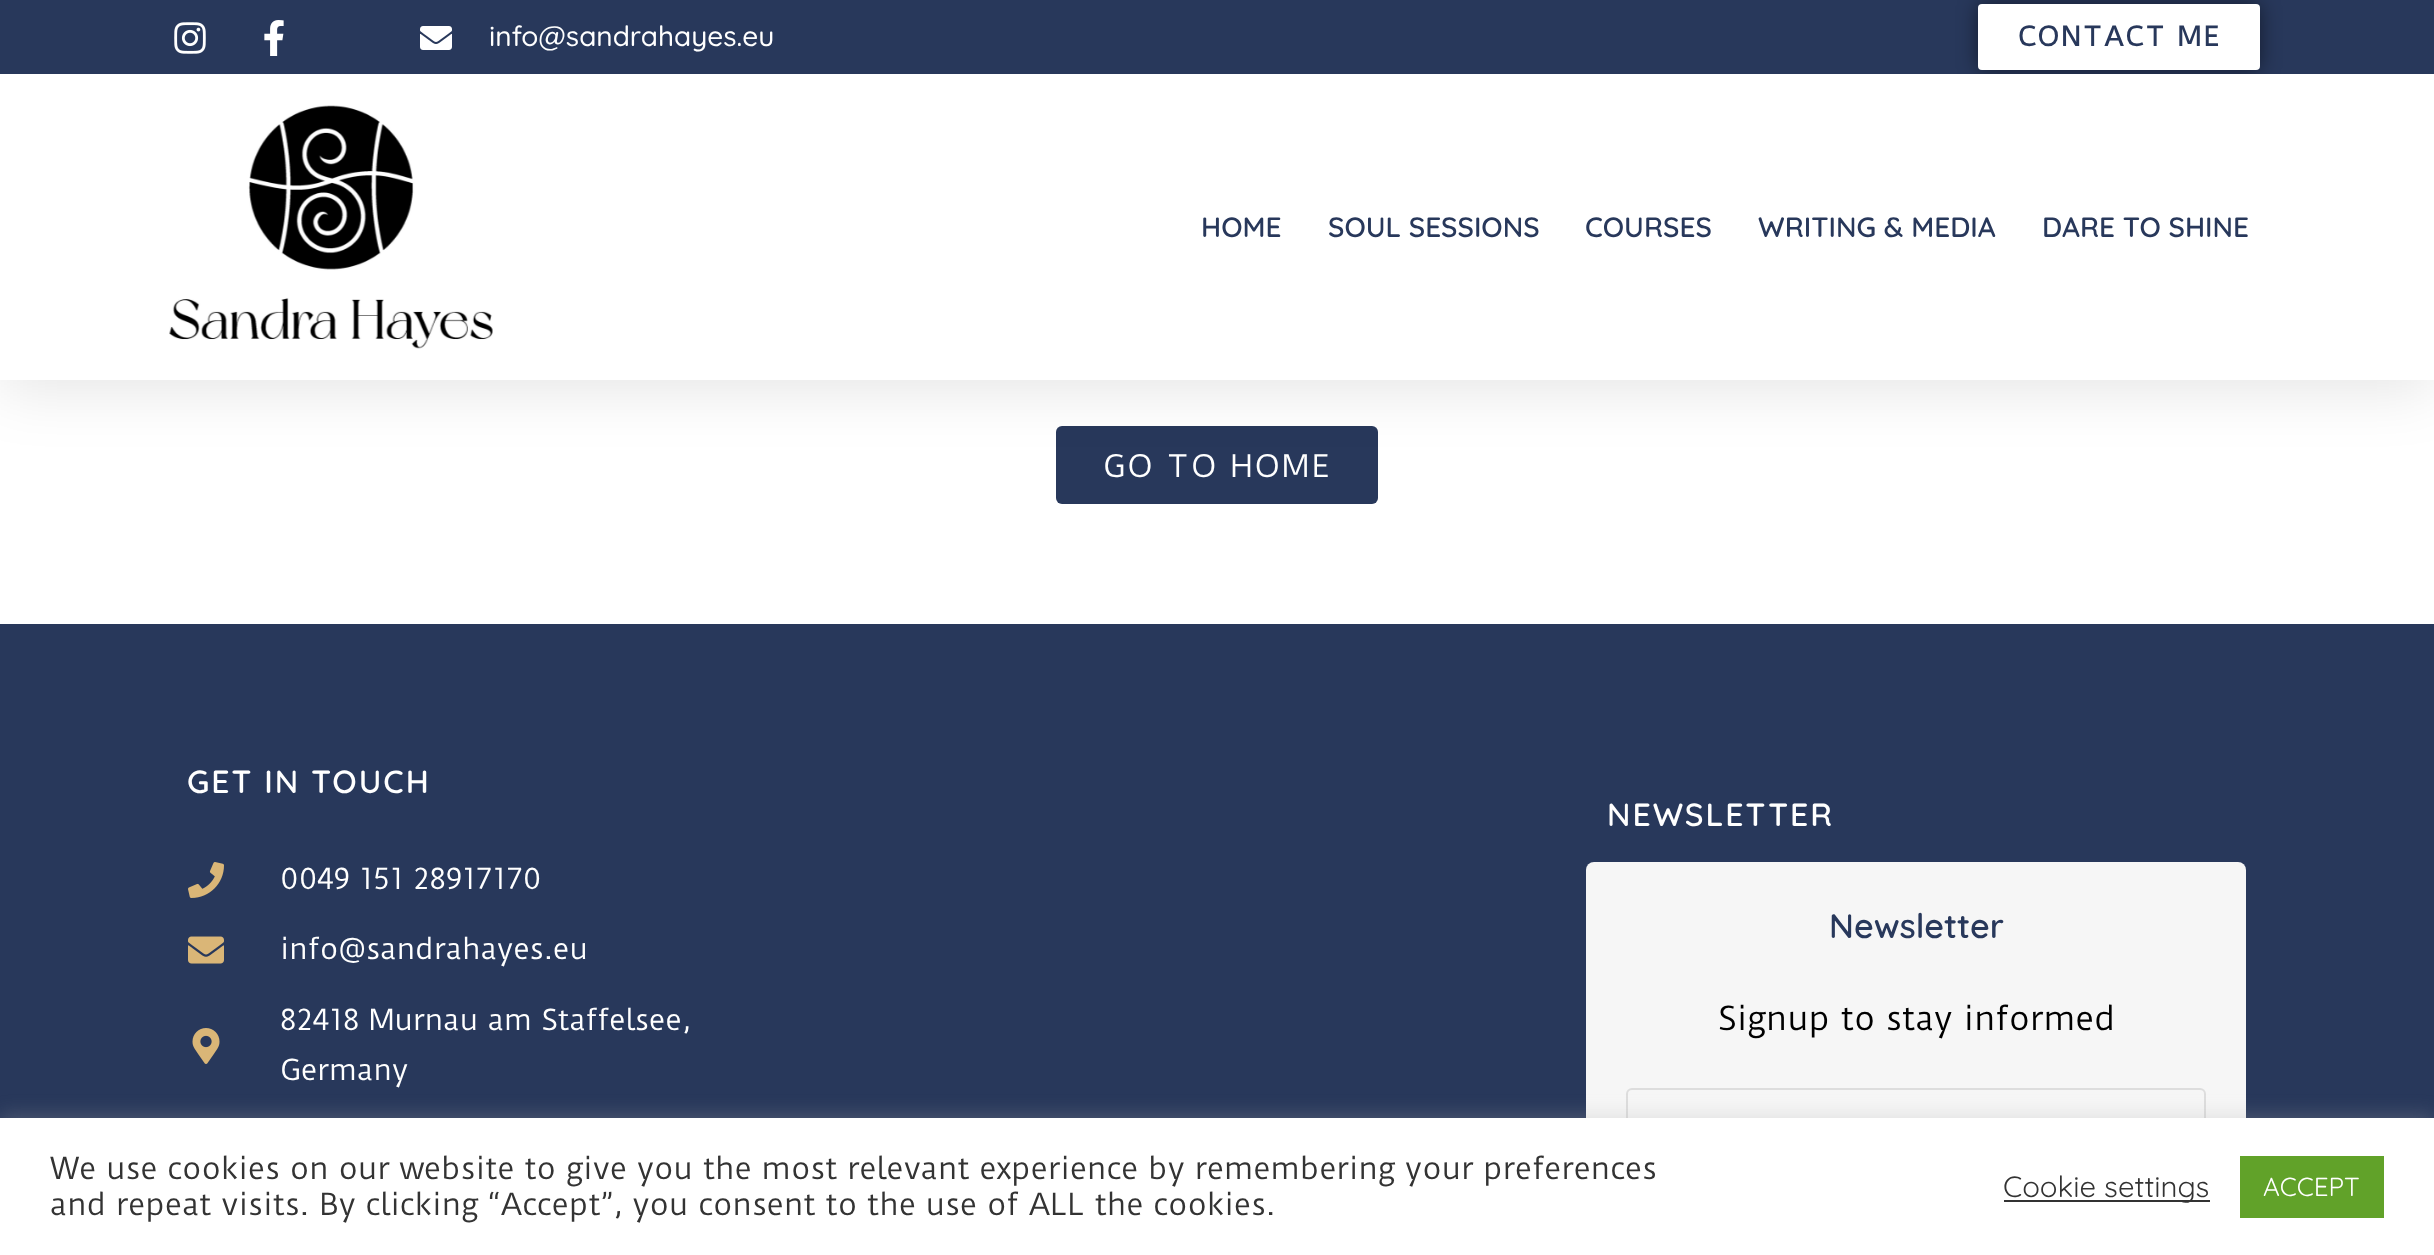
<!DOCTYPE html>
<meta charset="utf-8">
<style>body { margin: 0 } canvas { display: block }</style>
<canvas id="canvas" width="2434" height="1255"></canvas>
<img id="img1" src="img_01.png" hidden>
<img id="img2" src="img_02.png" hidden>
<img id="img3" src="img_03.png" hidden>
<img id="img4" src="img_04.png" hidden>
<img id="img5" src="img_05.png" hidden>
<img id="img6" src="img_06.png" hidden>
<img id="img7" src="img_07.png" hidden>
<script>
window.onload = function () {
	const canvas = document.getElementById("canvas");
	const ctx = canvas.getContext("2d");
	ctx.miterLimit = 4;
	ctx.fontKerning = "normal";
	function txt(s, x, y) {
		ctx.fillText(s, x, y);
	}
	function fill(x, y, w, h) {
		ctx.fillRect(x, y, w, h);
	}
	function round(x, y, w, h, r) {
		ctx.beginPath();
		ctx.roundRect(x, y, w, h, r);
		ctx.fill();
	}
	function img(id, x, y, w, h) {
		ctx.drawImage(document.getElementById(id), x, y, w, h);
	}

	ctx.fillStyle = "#FFFFFF";
	fill(0, 0, 2434, 1255);
	ctx.fillStyle = "#28385B";
	round(1056, 426, 322, 78, 6);
	ctx.fillStyle = "rgba(0, 0, 0, 0.1)";
	ctx.filter = "blur(30px)";
	ctx.beginPath();
	ctx.rect(0, 10, 2434, 380);
	ctx.fill();
	ctx.filter = "none";
	ctx.fillStyle = "#28385B";
	fill(0, 0, 2434, 74);
	img("img1", 174, 22, 32, 32);
	img("img2", 264, 20, 20, 36);
	img("img3", 420, 26, 32, 24);
	ctx.fillStyle = "rgba(0, 0, 0, 0.5)";
	ctx.filter = "blur(10px)";
	ctx.beginPath();
	ctx.roundRect(1978, 4, 282, 66, 4);
	ctx.fill();
	ctx.filter = "none";
	ctx.fillStyle = "#FFFFFF";
	round(1978, 4, 282, 66, 4);
	fill(0, 74, 2434, 306);
	img("img4", 169, 105, 324, 244);
	ctx.fillStyle = "#28385B";
	fill(0, 624, 2434, 494);
	img("img5", 188, 862, 36, 36);
	img("img6", 188, 936, 36, 28);
	img("img7", 192, 1028, 28, 36);
	ctx.fillStyle = "#F6F6F6";
	round(1586, 862, 660, 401, 8);
	ctx.beginPath();
	ctx.roundRect(1627, 1089, 578, 78, 5);
	ctx.strokeStyle = "#DDDDDD";
	ctx.lineWidth = 2;
	ctx.stroke();
	ctx.fillStyle = "rgba(172, 171, 171, 0.3)";
	ctx.filter = "blur(10px)";
	ctx.beginPath();
	ctx.rect(0, 1116, 2434, 138);
	ctx.fill();
	ctx.filter = "none";
	ctx.fillStyle = "#FFFFFF";
	fill(0, 1118, 2434, 137);
	ctx.fillStyle = "#333333";
	fill(2004, 1200, 206, 2);
	ctx.fillStyle = "#61A229";
	fill(2240, 1156, 144, 62);
	ctx.font = "300 28px Quicksand";
	ctx.fillStyle = "#FFFFFF";
	txt("info@sandrahayes.eu", 489, 46);
	ctx.letterSpacing = "2px";
	ctx.font = "bold 26px Duru Sans";
	ctx.fillStyle = "#28385B";
	txt("CONTACT ME", 2018, 46);
	ctx.letterSpacing = "0px";
	ctx.font = "600 28px Quicksand";
	txt("HOME", 1201, 237);
	txt("SOUL SESSIONS", 1328, 237);
	txt("COURSES", 1585, 237);
	txt("WRITING & MEDIA", 1758, 237);
	txt("DARE TO SHINE", 2042, 237);
	ctx.letterSpacing = "2px";
	ctx.font = "30px Duru Sans";
	ctx.fillStyle = "#FFFFFF";
	txt("GO TO HOME", 1103, 477);
	ctx.font = "600 32px Quicksand";
	txt("GET IN TOUCH", 187, 793);
	ctx.letterSpacing = "0px";
	ctx.font = "28px Duru Sans";
	txt("0049 151 28917170", 280, 889);
	txt("info@sandrahayes.eu", 280, 959);
	txt("82418 Murnau am Staffelsee,", 280, 1030);
	txt("Germany", 280, 1080);
	ctx.letterSpacing = "2px";
	ctx.font = "600 32px Quicksand";
	txt("NEWSLETTER", 1607, 826);
	ctx.letterSpacing = "0px";
	ctx.font = "600 34px Quicksand";
	ctx.fillStyle = "#28385B";
	txt("Newsletter", 1829, 938);
	ctx.font = "32px Duru Sans";
	ctx.fillStyle = "#000000";
	txt("Signup to stay informed", 1718, 1030);
	ctx.font = "29.33px Duru Sans";
	ctx.fillStyle = "#333333";
	txt("We use cookies on our website to give you the most relevant experience by remembering your preferences", 50, 1179);
	txt("and repeat visits. By clicking “Accept”, you consent to the use of ALL the cookies.", 50, 1215);
	ctx.font = "300 29.33px 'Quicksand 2'";
	txt("Cookie settings", 2003, 1197);
	ctx.font = "300 26px 'Quicksand 2'";
	ctx.fillStyle = "#FFFFFF";
	txt("ACCEPT", 2263, 1196);
};
</script>
